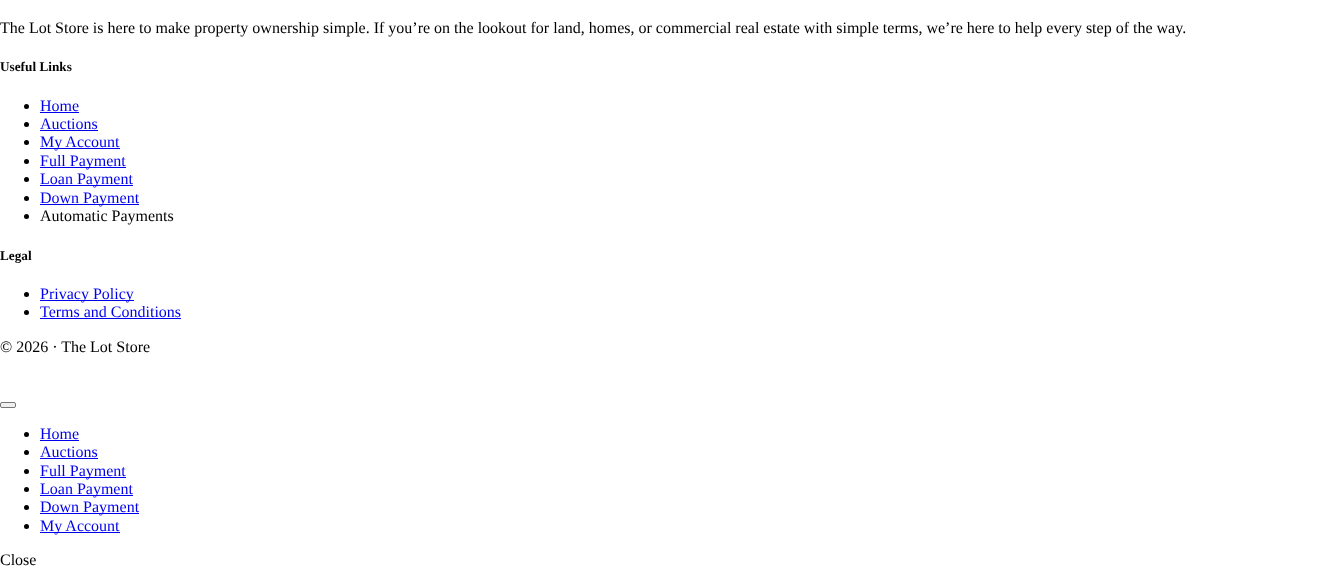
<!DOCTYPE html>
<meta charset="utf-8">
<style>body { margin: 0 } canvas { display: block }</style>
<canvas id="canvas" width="1328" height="577"></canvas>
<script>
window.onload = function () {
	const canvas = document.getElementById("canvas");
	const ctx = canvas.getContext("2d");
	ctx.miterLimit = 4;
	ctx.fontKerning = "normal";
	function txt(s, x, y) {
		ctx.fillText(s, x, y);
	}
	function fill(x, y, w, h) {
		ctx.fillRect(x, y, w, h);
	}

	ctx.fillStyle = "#FFFFFF";
	fill(0, 0, 1328, 577);
	ctx.fillStyle = "#000000";
	ctx.beginPath();
	ctx.arc(26.5, 106.5, 2.5, 0, Math.PI * 2);
	ctx.fill();
	ctx.fillStyle = "#0000EE";
	fill(40, 112, 39, 1);
	ctx.fillStyle = "#000000";
	ctx.beginPath();
	ctx.arc(26.5, 124.5, 2.5, 0, Math.PI * 2);
	ctx.fill();
	ctx.fillStyle = "#0000EE";
	fill(40, 130, 58, 1);
	ctx.fillStyle = "#000000";
	ctx.beginPath();
	ctx.arc(26.5, 142.5, 2.5, 0, Math.PI * 2);
	ctx.fill();
	ctx.fillStyle = "#0000EE";
	fill(40, 148, 80, 1);
	ctx.fillStyle = "#000000";
	ctx.beginPath();
	ctx.arc(26.5, 161.5, 2.5, 0, Math.PI * 2);
	ctx.fill();
	ctx.fillStyle = "#0000EE";
	fill(40, 167, 86, 1);
	ctx.fillStyle = "#000000";
	ctx.beginPath();
	ctx.arc(26.5, 179.5, 2.5, 0, Math.PI * 2);
	ctx.fill();
	ctx.fillStyle = "#0000EE";
	fill(40, 185, 93, 1);
	ctx.fillStyle = "#000000";
	ctx.beginPath();
	ctx.arc(26.5, 198.5, 2.5, 0, Math.PI * 2);
	ctx.fill();
	ctx.fillStyle = "#0000EE";
	fill(40, 204, 99, 1);
	ctx.fillStyle = "#000000";
	ctx.beginPath();
	ctx.arc(26.5, 216.5, 2.5, 0, Math.PI * 2);
	ctx.fill();
	ctx.beginPath();
	ctx.arc(26.5, 294.5, 2.5, 0, Math.PI * 2);
	ctx.fill();
	ctx.fillStyle = "#0000EE";
	fill(40, 300, 94, 1);
	ctx.fillStyle = "#000000";
	ctx.beginPath();
	ctx.arc(26.5, 312.5, 2.5, 0, Math.PI * 2);
	ctx.fill();
	ctx.fillStyle = "#0000EE";
	fill(40, 318, 141, 1);
	ctx.fillStyle = "#EFEFEF";
	ctx.beginPath();
	ctx.roundRect(0.5, 402.5, 15, 5, 1.5);
	ctx.fill();
	ctx.strokeStyle = "#767676";
	ctx.stroke();
	ctx.fillStyle = "#000000";
	ctx.beginPath();
	ctx.arc(26.5, 434.5, 2.5, 0, Math.PI * 2);
	ctx.fill();
	ctx.fillStyle = "#0000EE";
	fill(40, 440, 39, 1);
	ctx.fillStyle = "#000000";
	ctx.beginPath();
	ctx.arc(26.5, 452.5, 2.5, 0, Math.PI * 2);
	ctx.fill();
	ctx.fillStyle = "#0000EE";
	fill(40, 458, 58, 1);
	ctx.fillStyle = "#000000";
	ctx.beginPath();
	ctx.arc(26.5, 471.5, 2.5, 0, Math.PI * 2);
	ctx.fill();
	ctx.fillStyle = "#0000EE";
	fill(40, 477, 86, 1);
	ctx.fillStyle = "#000000";
	ctx.beginPath();
	ctx.arc(26.5, 489.5, 2.5, 0, Math.PI * 2);
	ctx.fill();
	ctx.fillStyle = "#0000EE";
	fill(40, 495, 93, 1);
	ctx.fillStyle = "#000000";
	ctx.beginPath();
	ctx.arc(26.5, 507.5, 2.5, 0, Math.PI * 2);
	ctx.fill();
	ctx.fillStyle = "#0000EE";
	fill(40, 513, 99, 1);
	ctx.fillStyle = "#000000";
	ctx.beginPath();
	ctx.arc(26.5, 526.5, 2.5, 0, Math.PI * 2);
	ctx.fill();
	ctx.fillStyle = "#0000EE";
	fill(40, 532, 80, 1);
	ctx.font = "16px Liberation Serif";
	ctx.fillStyle = "#000000";
	txt("The Lot Store is here to make property ownership simple. If you’re on the lookout for land, homes, or commercial real estate with simple terms, we’re here to help every step of the way.", 0, 33);
	ctx.font = "bold 13.25px Liberation Serif";
	txt("Useful Links", 0, 71);
	ctx.font = "16px Liberation Serif";
	ctx.fillStyle = "#0000EE";
	txt("Home", 40, 111);
	txt("Auctions", 40, 129);
	txt("My Account", 40, 147);
	txt("Full Payment", 40, 166);
	txt("Loan Payment", 40, 184);
	txt("Down Payment", 40, 203);
	ctx.fillStyle = "#000000";
	txt("Automatic Payments", 40, 221);
	ctx.font = "bold 13.25px Liberation Serif";
	txt("Legal", 0, 260);
	ctx.font = "16px Liberation Serif";
	ctx.fillStyle = "#0000EE";
	txt("Privacy Policy", 40, 299);
	txt("Terms and Conditions", 40, 317);
	ctx.fillStyle = "#000000";
	txt("© 2026 · The Lot Store", 0, 352);
	ctx.fillStyle = "#0000EE";
	txt("Home", 40, 439);
	txt("Auctions", 40, 457);
	txt("Full Payment", 40, 476);
	txt("Loan Payment", 40, 494);
	txt("Down Payment", 40, 512);
	txt("My Account", 40, 531);
	ctx.fillStyle = "#000000";
	txt("Close", 0, 565);
};
</script>
